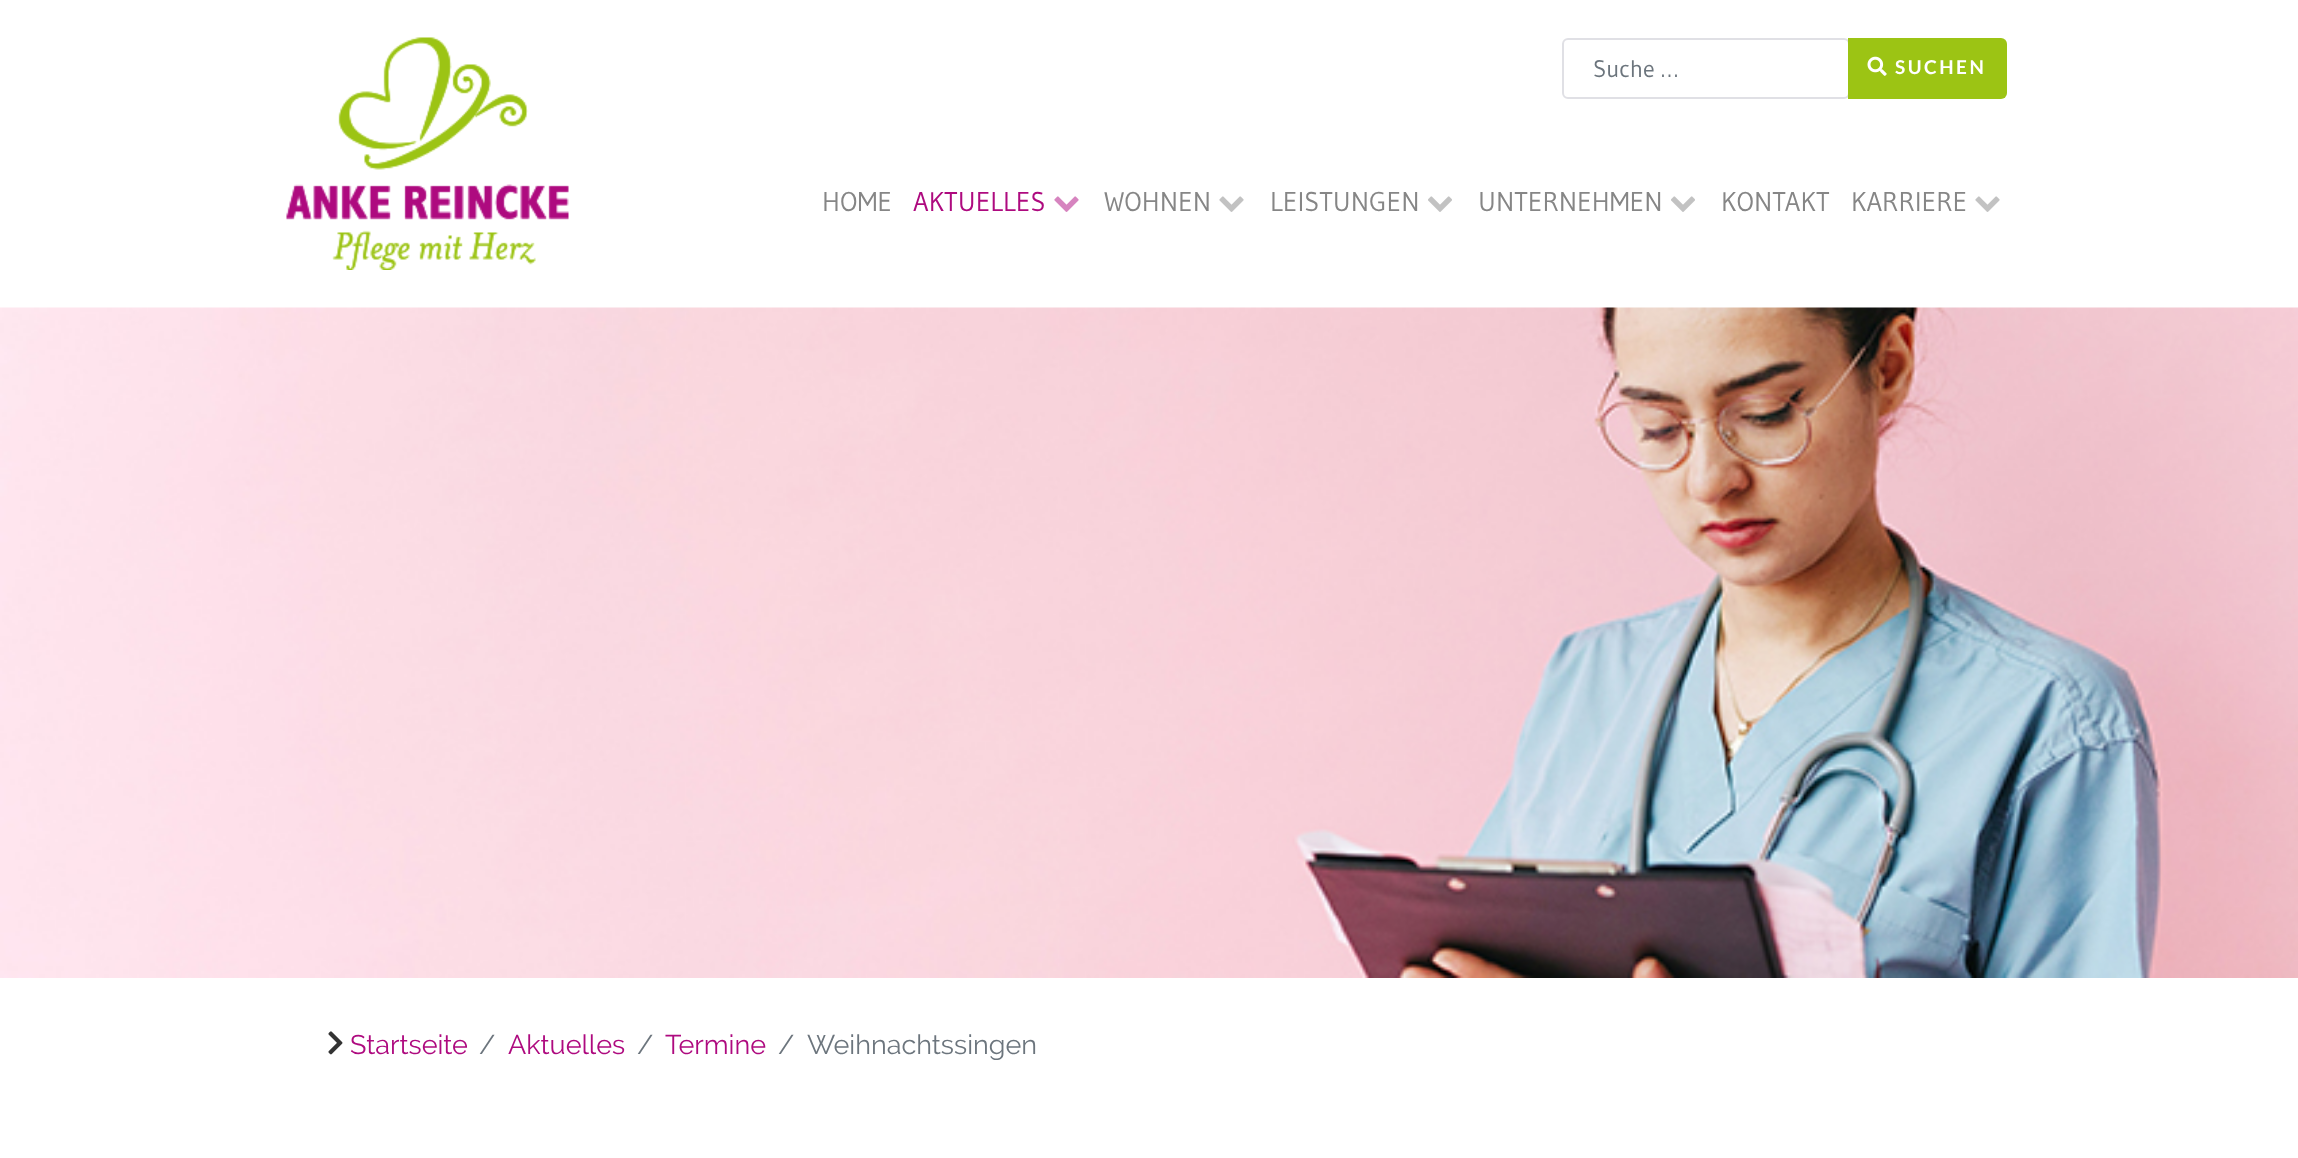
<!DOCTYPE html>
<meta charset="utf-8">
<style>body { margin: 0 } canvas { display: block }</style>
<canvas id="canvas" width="2298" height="1158"></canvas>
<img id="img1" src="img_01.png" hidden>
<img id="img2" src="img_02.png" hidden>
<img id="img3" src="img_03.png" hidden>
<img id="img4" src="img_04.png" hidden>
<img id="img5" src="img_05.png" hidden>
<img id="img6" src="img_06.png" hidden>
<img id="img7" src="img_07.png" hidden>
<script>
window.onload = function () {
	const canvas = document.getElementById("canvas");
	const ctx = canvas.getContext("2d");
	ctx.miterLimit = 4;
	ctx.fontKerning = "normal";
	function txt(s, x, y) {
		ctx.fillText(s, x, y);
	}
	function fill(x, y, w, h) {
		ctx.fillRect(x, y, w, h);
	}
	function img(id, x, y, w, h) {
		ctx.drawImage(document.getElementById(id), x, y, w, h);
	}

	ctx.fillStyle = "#FFFFFF";
	fill(0, 0, 2298, 1158);
	img("img1", 286, 37, 283, 233);
	ctx.beginPath();
	ctx.roundRect(1563, 39, 286, 59, 5);
	ctx.strokeStyle = "#E0E0E5";
	ctx.lineWidth = 2;
	ctx.stroke();
	ctx.fillStyle = "#9CC414";
	ctx.beginPath();
	ctx.roundRect(1848, 38, 159, 61, [0, 6, 6, 0]);
	ctx.fill();
	img("img2", 1867, 56, 20, 20);
	img("img3", 1054, 196, 25, 16);
	img("img4", 1219, 196, 25, 16);
	img("img5", 1428, 196, 24, 16);
	img("img5", 1671, 196, 24, 16);
	img("img4", 1975, 196, 25, 16);
	img("img6", 0, 307, 2298, 671);
	img("img7", 328, 1031, 15, 24);
	ctx.font = "24px Gudea";
	ctx.fillStyle = "#6C757D";
	txt("Suche …", 1593, 77);
	ctx.letterSpacing = "2.5px";
	ctx.font = "bold 19px Lato";
	ctx.fillStyle = "#FFFFFF";
	txt("SUCHEN", 1895, 74);
	ctx.letterSpacing = "0px";
	ctx.font = "27px Gudea";
	ctx.fillStyle = "#868686";
	txt("HOME", 822, 211);
	ctx.fillStyle = "#AE0A7F";
	txt("AKTUELLES", 913, 211);
	ctx.fillStyle = "#868686";
	txt("WOHNEN", 1104, 211);
	txt("LEISTUNGEN", 1270, 211);
	txt("UNTERNEHMEN", 1478, 211);
	txt("KONTAKT", 1721, 211);
	txt("KARRIERE", 1851, 211);
	ctx.font = "27px Raleway";
	ctx.fillStyle = "#AE0A7F";
	txt("Startseite", 350, 1054);
	ctx.fillStyle = "#6C757D";
	txt("/", 479, 1054);
	ctx.fillStyle = "#AE0A7F";
	txt("Aktuelles", 508, 1054);
	ctx.fillStyle = "#6C757D";
	txt("/", 637, 1054);
	ctx.fillStyle = "#AE0A7F";
	txt("Termine", 665, 1054);
	ctx.fillStyle = "#6C757D";
	txt("/", 778, 1054);
	txt("Weihnachtssingen", 807, 1054);
};
</script>
